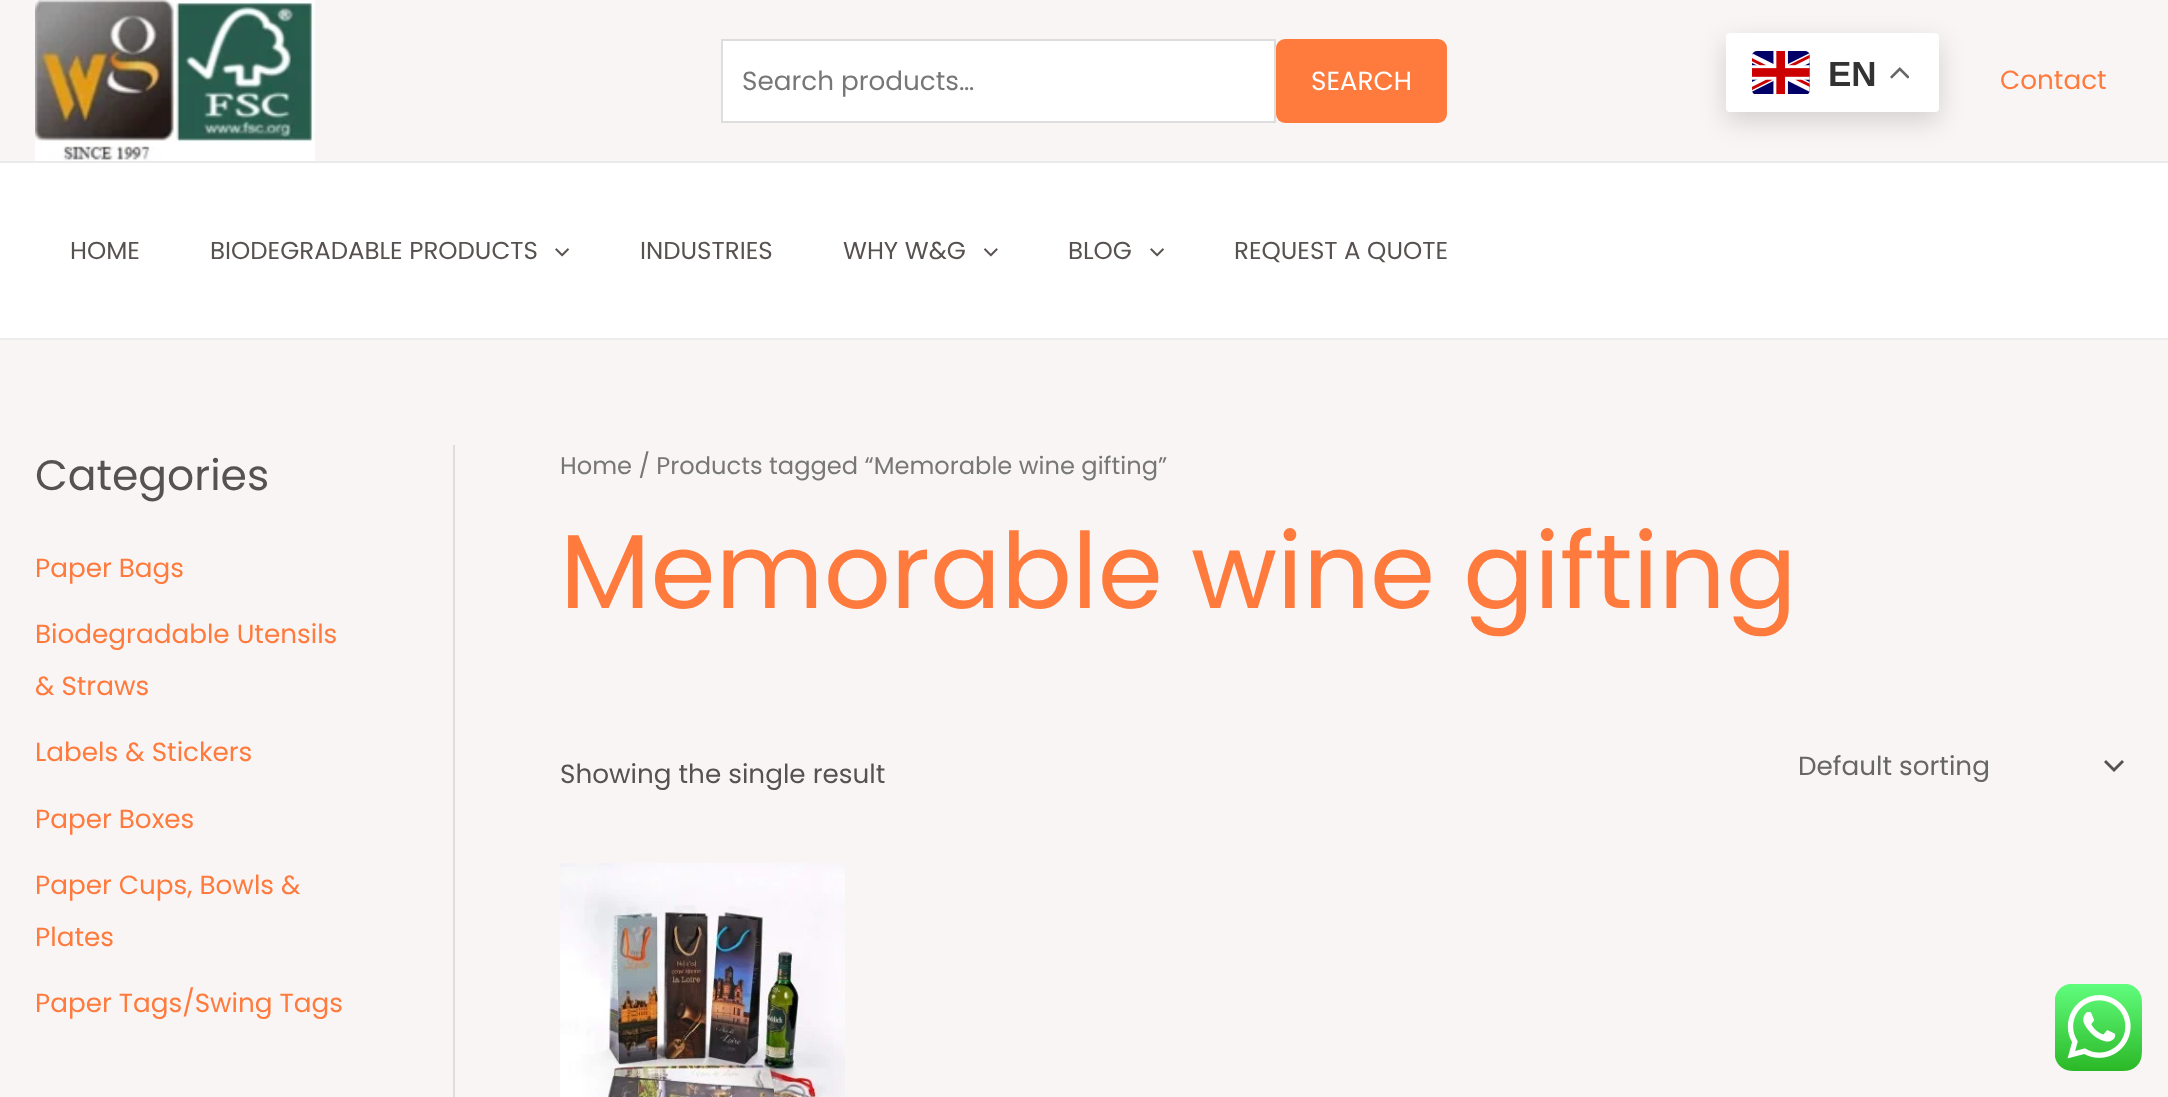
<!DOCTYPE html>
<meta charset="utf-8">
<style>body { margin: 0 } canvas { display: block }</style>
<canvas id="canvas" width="2168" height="1097"></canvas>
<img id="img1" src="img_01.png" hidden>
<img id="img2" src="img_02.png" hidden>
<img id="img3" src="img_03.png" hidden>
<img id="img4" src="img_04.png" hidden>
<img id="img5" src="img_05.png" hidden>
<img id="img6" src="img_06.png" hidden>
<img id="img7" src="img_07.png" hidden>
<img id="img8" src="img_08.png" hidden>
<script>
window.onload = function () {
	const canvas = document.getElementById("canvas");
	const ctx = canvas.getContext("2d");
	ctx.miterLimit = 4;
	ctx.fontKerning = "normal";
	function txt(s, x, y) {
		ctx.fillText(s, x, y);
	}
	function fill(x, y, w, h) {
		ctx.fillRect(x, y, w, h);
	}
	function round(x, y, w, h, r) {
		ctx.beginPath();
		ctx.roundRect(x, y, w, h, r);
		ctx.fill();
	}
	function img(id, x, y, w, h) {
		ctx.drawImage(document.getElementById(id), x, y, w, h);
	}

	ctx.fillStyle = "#F8F5F4";
	fill(0, 0, 2168, 1097);
	ctx.fillStyle = "#EAEAEA";
	fill(0, 161, 2168, 2);
	img("img1", 35, 0, 280, 161);
	ctx.fillStyle = "#FFFFFF";
	ctx.beginPath();
	ctx.rect(722, 40, 553, 82);
	ctx.fill();
	ctx.strokeStyle = "#DDDDDD";
	ctx.lineWidth = 2;
	ctx.stroke();
	ctx.fillStyle = "#FF7A3D";
	round(1276, 39, 171, 84, 9);
	ctx.fillStyle = "rgba(0, 0, 0, 0.15)";
	ctx.filter = "blur(13px)";
	ctx.beginPath();
	ctx.roundRect(1726, 42, 213, 79, 4);
	ctx.fill();
	ctx.filter = "none";
	ctx.fillStyle = "#FFFFFF";
	round(1726, 33, 213, 79, 4);
	img("img2", 1752, 51, 58, 44);
	img("img3", 1890, 67, 19, 12);
	fill(0, 163, 2168, 175);
	ctx.fillStyle = "#EDEDED";
	fill(0, 338, 2168, 2);
	img("img4", 555, 248, 15, 9);
	img("img5", 984, 248, 14, 9);
	img("img6", 1150, 248, 14, 9);
	ctx.fillStyle = "#DDDDDD";
	fill(453, 445, 2, 652);
	ctx.fillStyle = "#575250";
	ctx.beginPath();
	ctx.moveTo(2104, 762);
	ctx.lineTo(2114, 772);
	ctx.lineTo(2124, 762);
	ctx.lineTo(2122, 760);
	ctx.lineTo(2114, 768);
	ctx.lineTo(2106, 760);
	ctx.closePath();
	ctx.fill();
	img("img7", 560, 863, 285, 234);
	img("img8", 2055, 984, 87, 87);
	ctx.font = "26.25px Poppins";
	ctx.fillStyle = "#777777";
	txt("Search products…", 742, 90);
	ctx.fillStyle = "#FFFFFF";
	txt("SEARCH", 1311, 90);
	ctx.font = "bold 35px Liberation Sans";
	ctx.fillStyle = "#333333";
	txt("EN", 1828, 86);
	ctx.font = "26.25px Poppins";
	ctx.fillStyle = "#FF7A3D";
	txt("Contact", 2000, 89);
	ctx.font = "24.5px Poppins";
	ctx.fillStyle = "#575250";
	txt("HOME", 70, 259);
	txt("BIODEGRADABLE PRODUCTS", 210, 259);
	txt("INDUSTRIES", 640, 259);
	txt("WHY W&G", 843, 259);
	txt("BLOG", 1068, 259);
	txt("REQUEST A QUOTE", 1234, 259);
	ctx.font = "42.5px Poppins";
	txt("Categories", 35, 490);
	ctx.font = "26.25px Poppins";
	ctx.fillStyle = "#FF7A3D";
	txt("Paper Bags", 35, 577);
	txt("Biodegradable Utensils", 35, 643);
	txt("& Straws", 35, 695);
	txt("Labels & Stickers", 35, 761);
	txt("Paper Boxes", 35, 828);
	txt("Paper Cups, Bowls &", 35, 894);
	txt("Plates", 35, 946);
	txt("Paper Tags/Swing Tags", 35, 1012);
	ctx.font = "24.15px Poppins";
	ctx.fillStyle = "#777777";
	txt("Home / Products tagged “Memorable wine gifting”", 560, 474);
	ctx.font = "105px Poppins";
	ctx.fillStyle = "#FF7A3D";
	txt("Memorable wine gifting", 560, 608);
	ctx.font = "26.25px Poppins";
	ctx.fillStyle = "#575250";
	txt("Showing the single result", 560, 783);
	ctx.fillStyle = "#666666";
	txt("Default sorting", 1798, 775);
};
</script>
